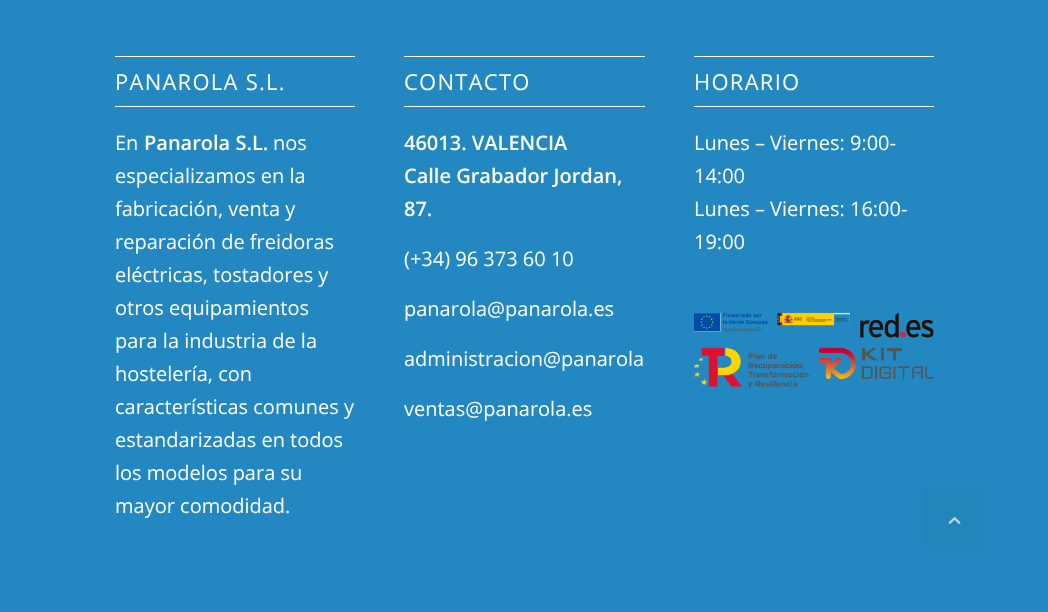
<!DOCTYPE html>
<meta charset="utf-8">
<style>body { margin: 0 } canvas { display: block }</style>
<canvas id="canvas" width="1048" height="612"></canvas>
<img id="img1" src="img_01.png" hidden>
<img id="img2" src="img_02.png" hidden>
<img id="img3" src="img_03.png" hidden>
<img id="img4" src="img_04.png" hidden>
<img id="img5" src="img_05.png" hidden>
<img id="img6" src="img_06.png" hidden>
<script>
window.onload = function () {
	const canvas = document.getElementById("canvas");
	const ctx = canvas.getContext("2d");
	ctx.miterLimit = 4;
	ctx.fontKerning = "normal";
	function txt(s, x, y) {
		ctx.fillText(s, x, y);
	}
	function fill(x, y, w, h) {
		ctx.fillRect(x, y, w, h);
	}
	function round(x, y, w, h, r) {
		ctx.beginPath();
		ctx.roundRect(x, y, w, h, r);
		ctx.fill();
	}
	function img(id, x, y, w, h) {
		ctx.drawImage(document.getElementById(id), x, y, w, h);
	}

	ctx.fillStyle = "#2388C2";
	fill(0, 0, 1048, 612);
	ctx.fillStyle = "#FFFFFF";
	fill(115, 56, 240, 1);
	fill(115, 106, 240, 1);
	fill(404, 56, 241, 1);
	fill(404, 106, 241, 1);
	fill(694, 56, 240, 1);
	fill(694, 106, 240, 1);
	img("img1", 694, 312, 74, 20);
	img("img2", 777, 312, 73, 14);
	img("img3", 860, 312, 74, 26);
	img("img4", 694, 347, 115, 41);
	img("img5", 818, 347, 116, 32);
	ctx.fillStyle = "#2285BB";
	round(924, 488, 62, 62, 2.5);
	img("img6", 948, 517, 13, 7);
	ctx.letterSpacing = "1.25px";
	ctx.font = "22px Open Sans";
	ctx.fillStyle = "#FFFFFF";
	txt("PANAROLA S.L.", 115, 90);
	ctx.letterSpacing = "0px";
	ctx.font = "20px Open Sans";
	txt("En", 115, 150);
	ctx.font = "600 20px Open Sans";
	txt("Panarola S.L.", 144, 150);
	ctx.font = "20px Open Sans";
	txt("nos", 273, 150);
	txt("especializamos en la", 115, 183);
	txt("fabricación, venta y", 115, 216);
	txt("reparación de freidoras", 115, 249);
	txt("eléctricas, tostadores y", 115, 282);
	txt("otros equipamientos", 115, 315);
	txt("para la industria de la", 115, 348);
	txt("hostelería, con", 115, 381);
	txt("características comunes y", 115, 414);
	txt("estandarizadas en todos", 115, 447);
	txt("los modelos para su", 115, 480);
	txt("mayor comodidad.", 115, 513);
	ctx.letterSpacing = "1.25px";
	ctx.font = "22px Open Sans";
	txt("CONTACTO", 404, 90);
	ctx.letterSpacing = "0px";
	ctx.font = "600 20px Open Sans";
	txt("46013. VALENCIA", 404, 150);
	txt("Calle Grabador Jordan,", 404, 183);
	txt("87.", 404, 216);
	ctx.font = "20px Open Sans";
	txt("(+34) 96 373 60 10", 404, 266);
	txt("panarola@panarola.es", 404, 316);
	txt("administracion@panarola", 404, 366);
	txt("ventas@panarola.es", 404, 416);
	ctx.letterSpacing = "1.25px";
	ctx.font = "22px Open Sans";
	txt("HORARIO", 694, 90);
	ctx.letterSpacing = "0px";
	ctx.font = "20px Open Sans";
	txt("Lunes – Viernes: 9:00-", 694, 150);
	txt("14:00", 694, 183);
	txt("Lunes – Viernes: 16:00-", 694, 216);
	txt("19:00", 694, 249);
};
</script>
